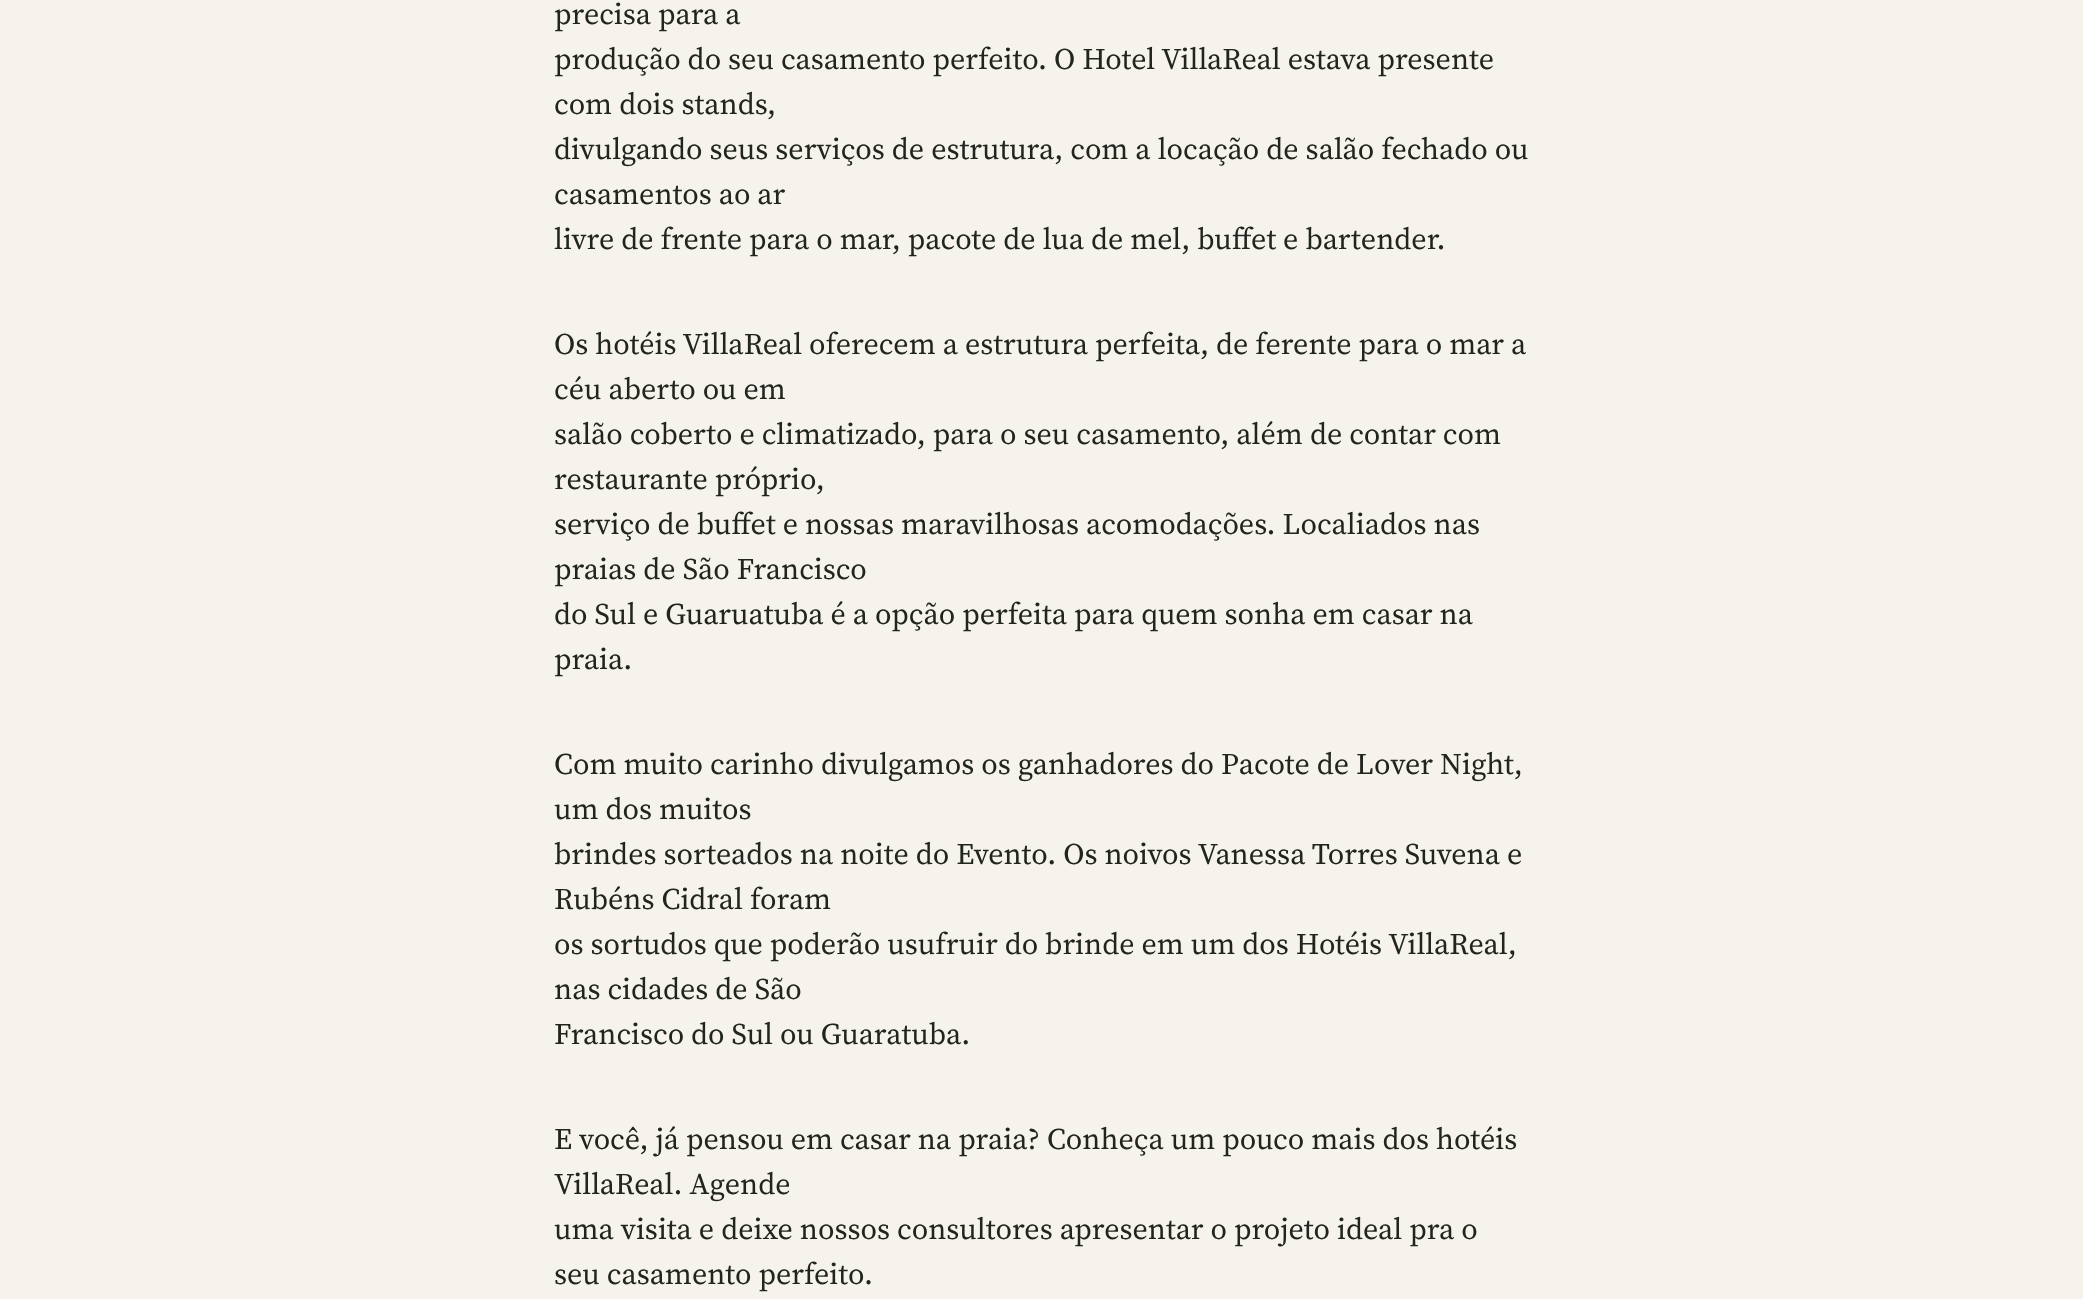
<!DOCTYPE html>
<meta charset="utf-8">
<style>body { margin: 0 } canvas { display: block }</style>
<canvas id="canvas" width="2083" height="1299"></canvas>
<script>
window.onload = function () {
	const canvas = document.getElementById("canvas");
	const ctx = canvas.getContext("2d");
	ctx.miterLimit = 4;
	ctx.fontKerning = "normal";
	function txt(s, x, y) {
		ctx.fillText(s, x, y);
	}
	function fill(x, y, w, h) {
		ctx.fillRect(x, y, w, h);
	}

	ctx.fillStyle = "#F6F2EC";
	fill(0, 0, 2083, 1299);
	ctx.font = "30px 'Source Serif 4'";
	ctx.fillStyle = "#21251F";
	txt("precisa para a", 554, 24);
	txt("produção do seu casamento perfeito. O Hotel VillaReal estava presente", 554, 69);
	txt("com dois stands,", 554, 114);
	txt("divulgando seus serviços de estrutura, com a locação de salão fechado ou", 554, 159);
	txt("casamentos ao ar", 554, 204);
	txt("livre de frente para o mar, pacote de lua de mel, buffet e bartender.", 554, 249);
	txt("Os hotéis VillaReal oferecem a estrutura perfeita, de ferente para o mar a", 554, 354);
	txt("céu aberto ou em", 554, 399);
	txt("salão coberto e climatizado, para o seu casamento, além de contar com", 554, 444);
	txt("restaurante próprio,", 554, 489);
	txt("serviço de buffet e nossas maravilhosas acomodações. Localiados nas", 554, 534);
	txt("praias de São Francisco", 554, 579);
	txt("do Sul e Guaruatuba é a opção perfeita para quem sonha em casar na", 554, 624);
	txt("praia.", 554, 669);
	txt("Com muito carinho divulgamos os ganhadores do Pacote de Lover Night,", 554, 774);
	txt("um dos muitos", 554, 819);
	txt("brindes sorteados na noite do Evento. Os noivos Vanessa Torres Suvena e", 554, 864);
	txt("Rubéns Cidral foram", 554, 909);
	txt("os sortudos que poderão usufruir do brinde em um dos Hotéis VillaReal,", 554, 954);
	txt("nas cidades de São", 554, 999);
	txt("Francisco do Sul ou Guaratuba.", 554, 1044);
	txt("E você, já pensou em casar na praia? Conheça um pouco mais dos hotéis", 554, 1149);
	txt("VillaReal. Agende", 554, 1194);
	txt("uma visita e deixe nossos consultores apresentar o projeto ideal pra o", 554, 1239);
	txt("seu casamento perfeito.", 554, 1284);
};
</script>
